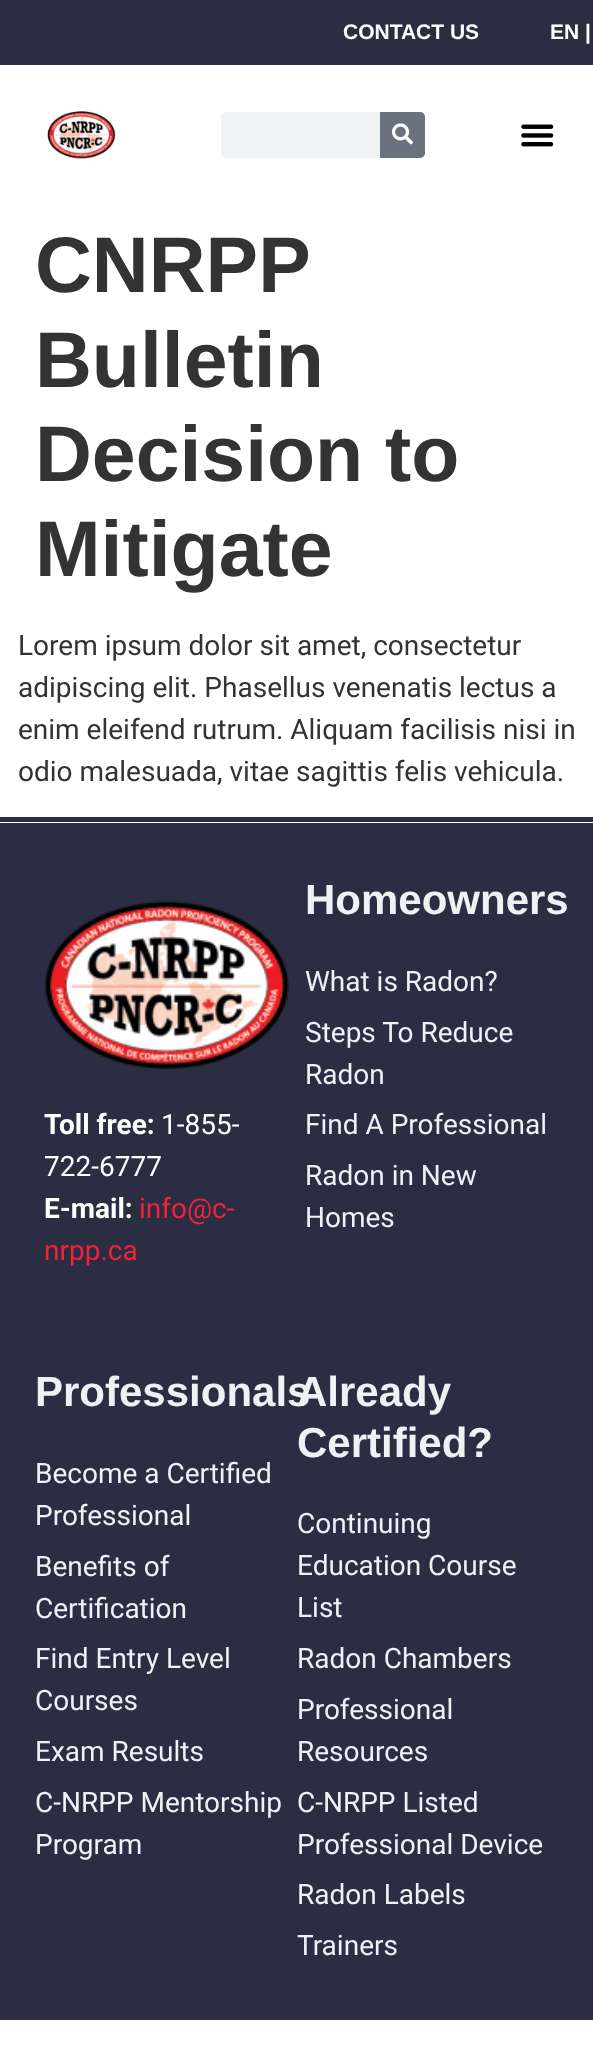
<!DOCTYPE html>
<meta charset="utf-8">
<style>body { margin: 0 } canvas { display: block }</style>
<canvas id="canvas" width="593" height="2047"></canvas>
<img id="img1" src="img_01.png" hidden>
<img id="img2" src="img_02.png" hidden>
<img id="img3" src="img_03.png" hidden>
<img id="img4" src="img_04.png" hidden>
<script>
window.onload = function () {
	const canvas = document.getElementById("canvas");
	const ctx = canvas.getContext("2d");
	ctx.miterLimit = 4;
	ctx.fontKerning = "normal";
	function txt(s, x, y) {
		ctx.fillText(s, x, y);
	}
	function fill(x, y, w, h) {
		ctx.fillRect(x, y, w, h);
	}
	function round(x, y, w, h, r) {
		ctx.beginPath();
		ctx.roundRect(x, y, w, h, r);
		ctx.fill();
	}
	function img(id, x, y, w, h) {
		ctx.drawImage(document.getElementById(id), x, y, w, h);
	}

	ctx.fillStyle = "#FFFFFF";
	fill(0, 0, 593, 2047);
	ctx.fillStyle = "#2B2D42";
	fill(0, 0, 593, 65);
	img("img1", 47, 111, 69, 48);
	ctx.fillStyle = "#F1F2F3";
	round(221, 112, 204, 46, 5);
	ctx.fillStyle = "#69727D";
	ctx.beginPath();
	ctx.roundRect(380, 112, 45, 46, [0, 5, 5, 0]);
	ctx.fill();
	img("img2", 392, 123, 21, 22);
	img("img3", 521, 124, 33, 23);
	ctx.fillStyle = "#2B2D42";
	fill(0, 823, 593, 1197);
	fill(0, 817, 593, 5);
	img("img4", 45, 901, 244, 169);
	ctx.font = "bold 21px Liberation Sans";
	ctx.fillStyle = "#FFFFFF";
	txt("CONTACT US", 343, 39);
	txt("EN |", 550, 39);
	ctx.font = "bold 78.75px Liberation Sans";
	ctx.fillStyle = "#333333";
	txt("CNRPP", 35, 292);
	txt("Bulletin", 35, 387);
	txt("Decision to", 35, 481);
	txt("Mitigate", 35, 576);
	ctx.font = "28px Roboto";
	txt("Lorem ipsum dolor sit amet, consectetur", 18, 655);
	txt("adipiscing elit. Phasellus venenatis lectus a", 18, 697);
	txt("enim eleifend rutrum. Aliquam facilisis nisi in", 18, 739);
	txt("odio malesuada, vitae sagittis felis vehicula.", 18, 781);
	ctx.font = "bold 28px Roboto";
	ctx.fillStyle = "#FFFFFF";
	txt("Toll free:", 44, 1134);
	ctx.font = "28px Roboto";
	txt("1-855-", 161, 1134);
	txt("722-6777", 44, 1176);
	ctx.font = "bold 28px Roboto";
	txt("E-mail:", 44, 1218);
	ctx.font = "28px Roboto";
	ctx.fillStyle = "#EF233C";
	txt("info@c-", 139, 1218);
	txt("nrpp.ca", 44, 1260);
	ctx.font = "bold 42px Liberation Sans";
	ctx.fillStyle = "#EDF2F4";
	txt("Homeowners", 305, 914);
	ctx.font = "28px Roboto";
	txt("What is Radon?", 305, 991);
	txt("Steps To Reduce", 305, 1042);
	txt("Radon", 305, 1084);
	txt("Find A Professional", 305, 1134);
	txt("Radon in New", 305, 1185);
	txt("Homes", 305, 1227);
	ctx.font = "bold 42px Liberation Sans";
	txt("Professionals", 35, 1406);
	ctx.font = "28px Roboto";
	txt("Become a Certified", 35, 1483);
	txt("Professional", 35, 1525);
	txt("Benefits of", 35, 1576);
	txt("Certification", 35, 1618);
	txt("Find Entry Level", 35, 1668);
	txt("Courses", 35, 1710);
	txt("Exam Results", 35, 1761);
	txt("C-NRPP Mentorship", 35, 1812);
	txt("Program", 35, 1854);
	ctx.font = "bold 42px Liberation Sans";
	txt("Already", 297, 1406);
	txt("Certified?", 297, 1457);
	ctx.font = "28px Roboto";
	txt("Continuing", 297, 1533);
	txt("Education Course", 297, 1575);
	txt("List", 297, 1617);
	txt("Radon Chambers", 297, 1668);
	txt("Professional", 297, 1719);
	txt("Resources", 297, 1761);
	txt("C-NRPP Listed", 297, 1812);
	txt("Professional Device", 297, 1854);
	txt("Radon Labels", 297, 1904);
	txt("Trainers", 297, 1955);
};
</script>
